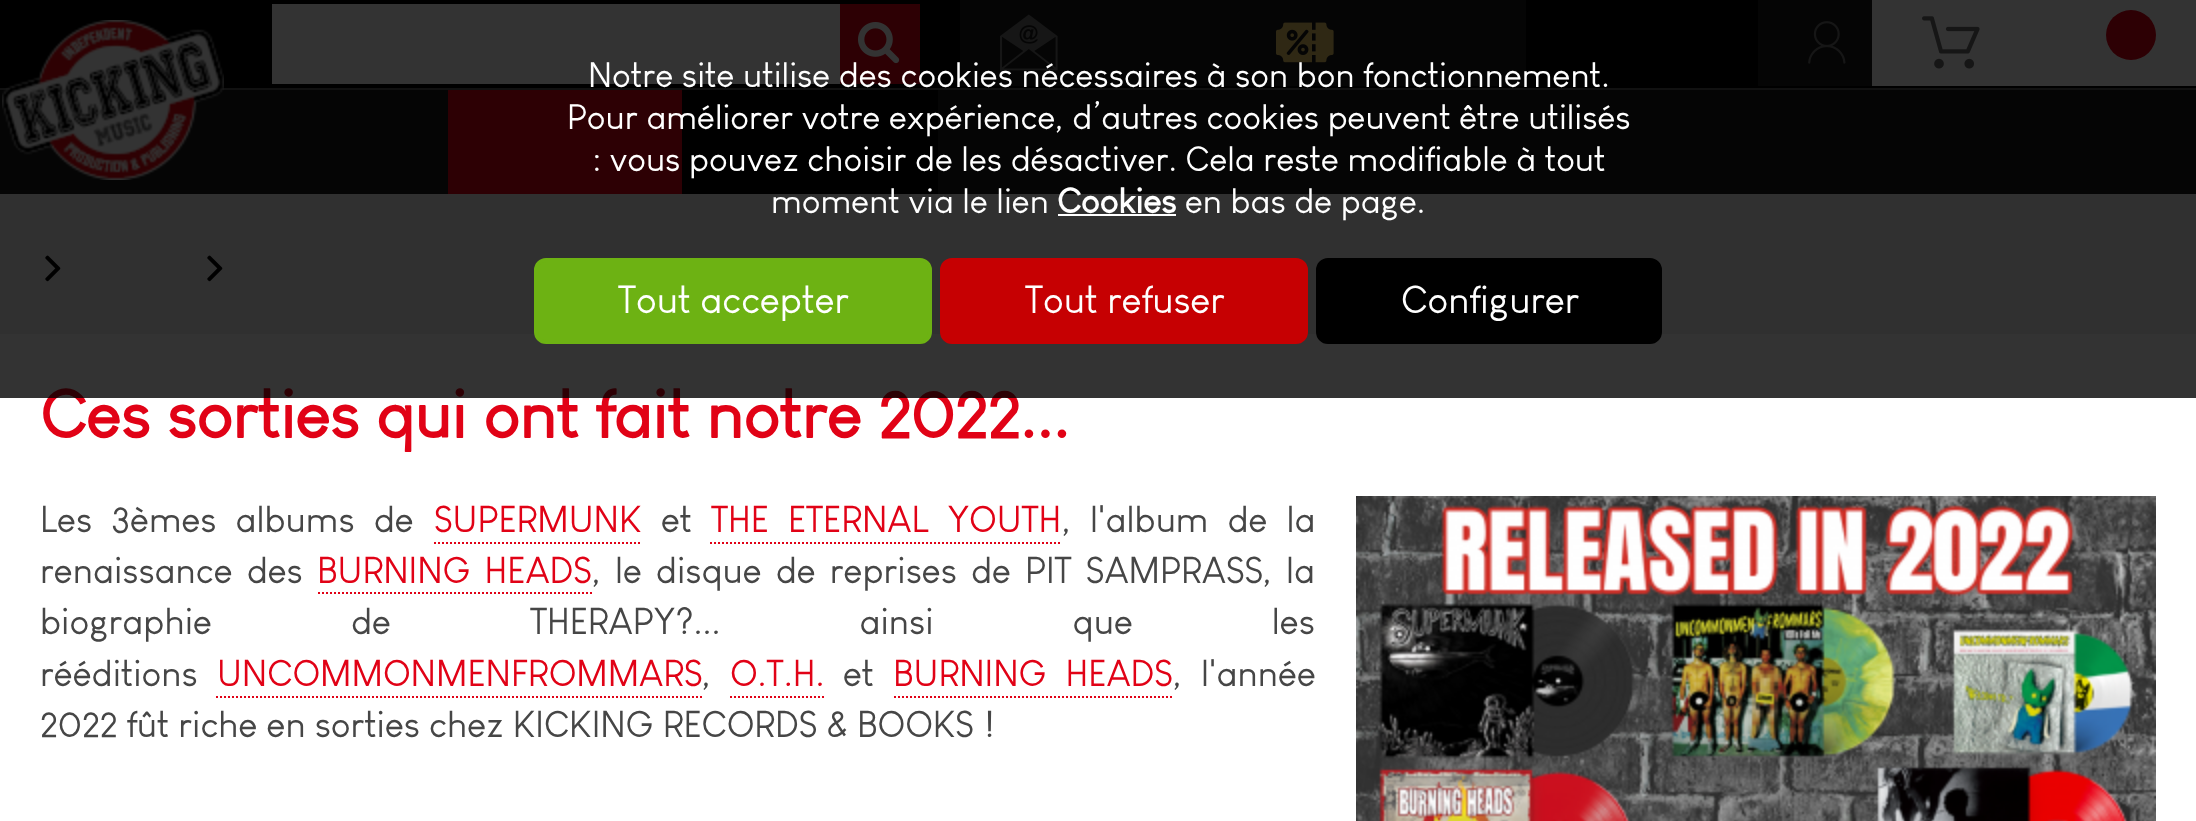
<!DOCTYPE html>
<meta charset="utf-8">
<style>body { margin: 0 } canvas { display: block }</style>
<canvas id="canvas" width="2196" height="821"></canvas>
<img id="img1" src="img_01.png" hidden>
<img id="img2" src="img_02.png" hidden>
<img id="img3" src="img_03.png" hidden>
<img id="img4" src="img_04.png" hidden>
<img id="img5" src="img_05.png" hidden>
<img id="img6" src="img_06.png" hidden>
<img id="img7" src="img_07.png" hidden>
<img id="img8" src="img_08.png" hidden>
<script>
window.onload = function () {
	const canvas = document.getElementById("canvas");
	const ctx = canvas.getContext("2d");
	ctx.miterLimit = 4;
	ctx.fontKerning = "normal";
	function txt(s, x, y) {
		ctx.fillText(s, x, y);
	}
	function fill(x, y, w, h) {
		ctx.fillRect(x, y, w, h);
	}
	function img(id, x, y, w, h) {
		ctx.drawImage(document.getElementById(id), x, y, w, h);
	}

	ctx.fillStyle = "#EEEEEE";
	fill(0, 0, 2196, 821);
	ctx.fillStyle = "#000000";
	fill(0, 0, 2196, 88);
	ctx.fillStyle = "#545454";
	fill(0, 88, 2196, 2);
	ctx.fillStyle = "#FFFFFF";
	fill(272, 4, 568, 80);
	ctx.fillStyle = "#E10216";
	fill(840, 4, 80, 80);
	img("img1", 858, 22, 42, 42);
	ctx.fillStyle = "#1C1C1C";
	fill(960, 0, 566, 86);
	img("img2", 1000, 14, 58, 57);
	fill(1758, 0, 114, 86);
	img("img3", 1808, 21, 38, 43);
	ctx.fillStyle = "#FFFFFF";
	fill(1872, 0, 324, 86);
	img("img4", 1922, 16, 58, 53);
	ctx.fillStyle = "#E10216";
	ctx.beginPath();
	ctx.arc(2131, 35, 25, 0, Math.PI * 2);
	ctx.fill();
	img("img5", 1276, 22, 58, 41);
	ctx.fillStyle = "#1C1C1C";
	fill(0, 90, 2196, 104);
	img("img6", 2, 20, 222, 160);
	ctx.fillStyle = "#E10216";
	fill(448, 90, 234, 104);
	ctx.fillStyle = "#000000";
	fill(682, 90, 256, 104);
	img("img7", 45, 255, 16, 27);
	img("img7", 207, 255, 16, 27);
	ctx.fillStyle = "#FFFFFF";
	fill(0, 334, 2196, 487);
	ctx.beginPath();
	ctx.moveTo(434, 543);
	ctx.lineTo(642, 543);
	ctx.strokeStyle = "#E10216";
	ctx.lineWidth = 2;
	ctx.setLineDash([2, 2]);
	ctx.stroke();
	ctx.beginPath();
	ctx.moveTo(710, 543);
	ctx.lineTo(1062, 543);
	ctx.stroke();
	ctx.beginPath();
	ctx.moveTo(318, 593);
	ctx.lineTo(592, 593);
	ctx.stroke();
	ctx.beginPath();
	ctx.moveTo(216, 697);
	ctx.lineTo(702, 697);
	ctx.stroke();
	ctx.beginPath();
	ctx.moveTo(730, 697);
	ctx.lineTo(824, 697);
	ctx.stroke();
	ctx.beginPath();
	ctx.moveTo(894, 697);
	ctx.lineTo(1174, 697);
	ctx.stroke();
	img("img8", 1356, 496, 800, 325);
	ctx.font = "bold 67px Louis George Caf";
	ctx.fillStyle = "#E10216";
	txt("Ces sorties qui ont fait notre 2022...", 40, 438);
	ctx.fillStyle = "rgba(0, 0, 0, 0.8)";
	fill(0, 0, 2196, 398);
	ctx.fillStyle = "#000000";
	ctx.beginPath();
	ctx.roundRect(1318, 260, 342, 82, 10);
	ctx.fill();
	ctx.strokeStyle = "#000000";
	ctx.lineWidth = 4;
	ctx.setLineDash([]);
	ctx.stroke();
	ctx.font = "38.5px Louis George Caf";
	ctx.fillStyle = "#FFFFFF";
	txt("Configurer", 1401, 313);
	ctx.fillStyle = "#C60002";
	ctx.beginPath();
	ctx.roundRect(942, 260, 364, 82, 10);
	ctx.fill();
	ctx.strokeStyle = "#C60002";
	ctx.stroke();
	ctx.fillStyle = "#FFFFFF";
	txt("Tout refuser", 1025, 313);
	ctx.fillStyle = "#6DB213";
	ctx.beginPath();
	ctx.roundRect(536, 260, 394, 82, 10);
	ctx.fill();
	ctx.strokeStyle = "#6DB213";
	ctx.stroke();
	ctx.fillStyle = "#FFFFFF";
	txt("Tout accepter", 618, 313);
	ctx.font = "34.7px Louis George Caf";
	txt("en bas de page.", 1185, 213);
	ctx.font = "bold 34.7px Louis George Caf";
	txt("Cookies", 1057, 213);
	fill(1058, 214, 118, 2);
	ctx.font = "34.7px Louis George Caf";
	txt("moment via le lien", 771, 213);
	txt(": vous pouvez choisir de les désactiver. Cela reste modifiable à tout", 592, 171);
	txt("Pour améliorer votre expérience, d’autres cookies peuvent être utilisés", 567, 129);
	txt("Notre site utilise des cookies nécessaires à son bon fonctionnement.", 588, 87);
	ctx.wordSpacing = "10px";
	ctx.font = "36.65px Louis George Caf";
	ctx.fillStyle = "#464646";
	txt("Les 3èmes albums de", 40, 532);
	ctx.wordSpacing = "0px";
	ctx.fillStyle = "#E10216";
	txt("SUPERMUNK", 434, 532);
	ctx.fillStyle = "#464646";
	txt("et", 661, 532);
	ctx.wordSpacing = "10px";
	ctx.fillStyle = "#E10216";
	txt("THE ETERNAL YOUTH", 711, 532);
	ctx.fillStyle = "#464646";
	txt(", l'album de la", 1062, 532);
	ctx.wordSpacing = "5px";
	txt("renaissance des", 40, 583);
	ctx.fillStyle = "#E10216";
	txt("BURNING HEADS", 317, 583);
	ctx.fillStyle = "#464646";
	txt(", le disque de reprises de PIT SAMPRASS, la", 592, 583);
	ctx.wordSpacing = "130px";
	txt("biographie de THERAPY?... ainsi que les", 40, 634);
	ctx.wordSpacing = "0px";
	txt("rééditions", 40, 686);
	ctx.fillStyle = "#E10216";
	txt("UNCOMMONMENFROMMARS", 217, 686);
	ctx.fillStyle = "#464646";
	txt(",", 702, 686);
	ctx.fillStyle = "#E10216";
	txt("O.T.H.", 730, 686);
	ctx.fillStyle = "#464646";
	txt("et", 843, 686);
	ctx.wordSpacing = "10px";
	ctx.fillStyle = "#E10216";
	txt("BURNING HEADS", 893, 686);
	ctx.fillStyle = "#464646";
	txt(", l'année", 1173, 686);
	ctx.wordSpacing = "0px";
	txt("2022 fût riche en sorties chez KICKING RECORDS & BOOKS !", 40, 737);
};
</script>
